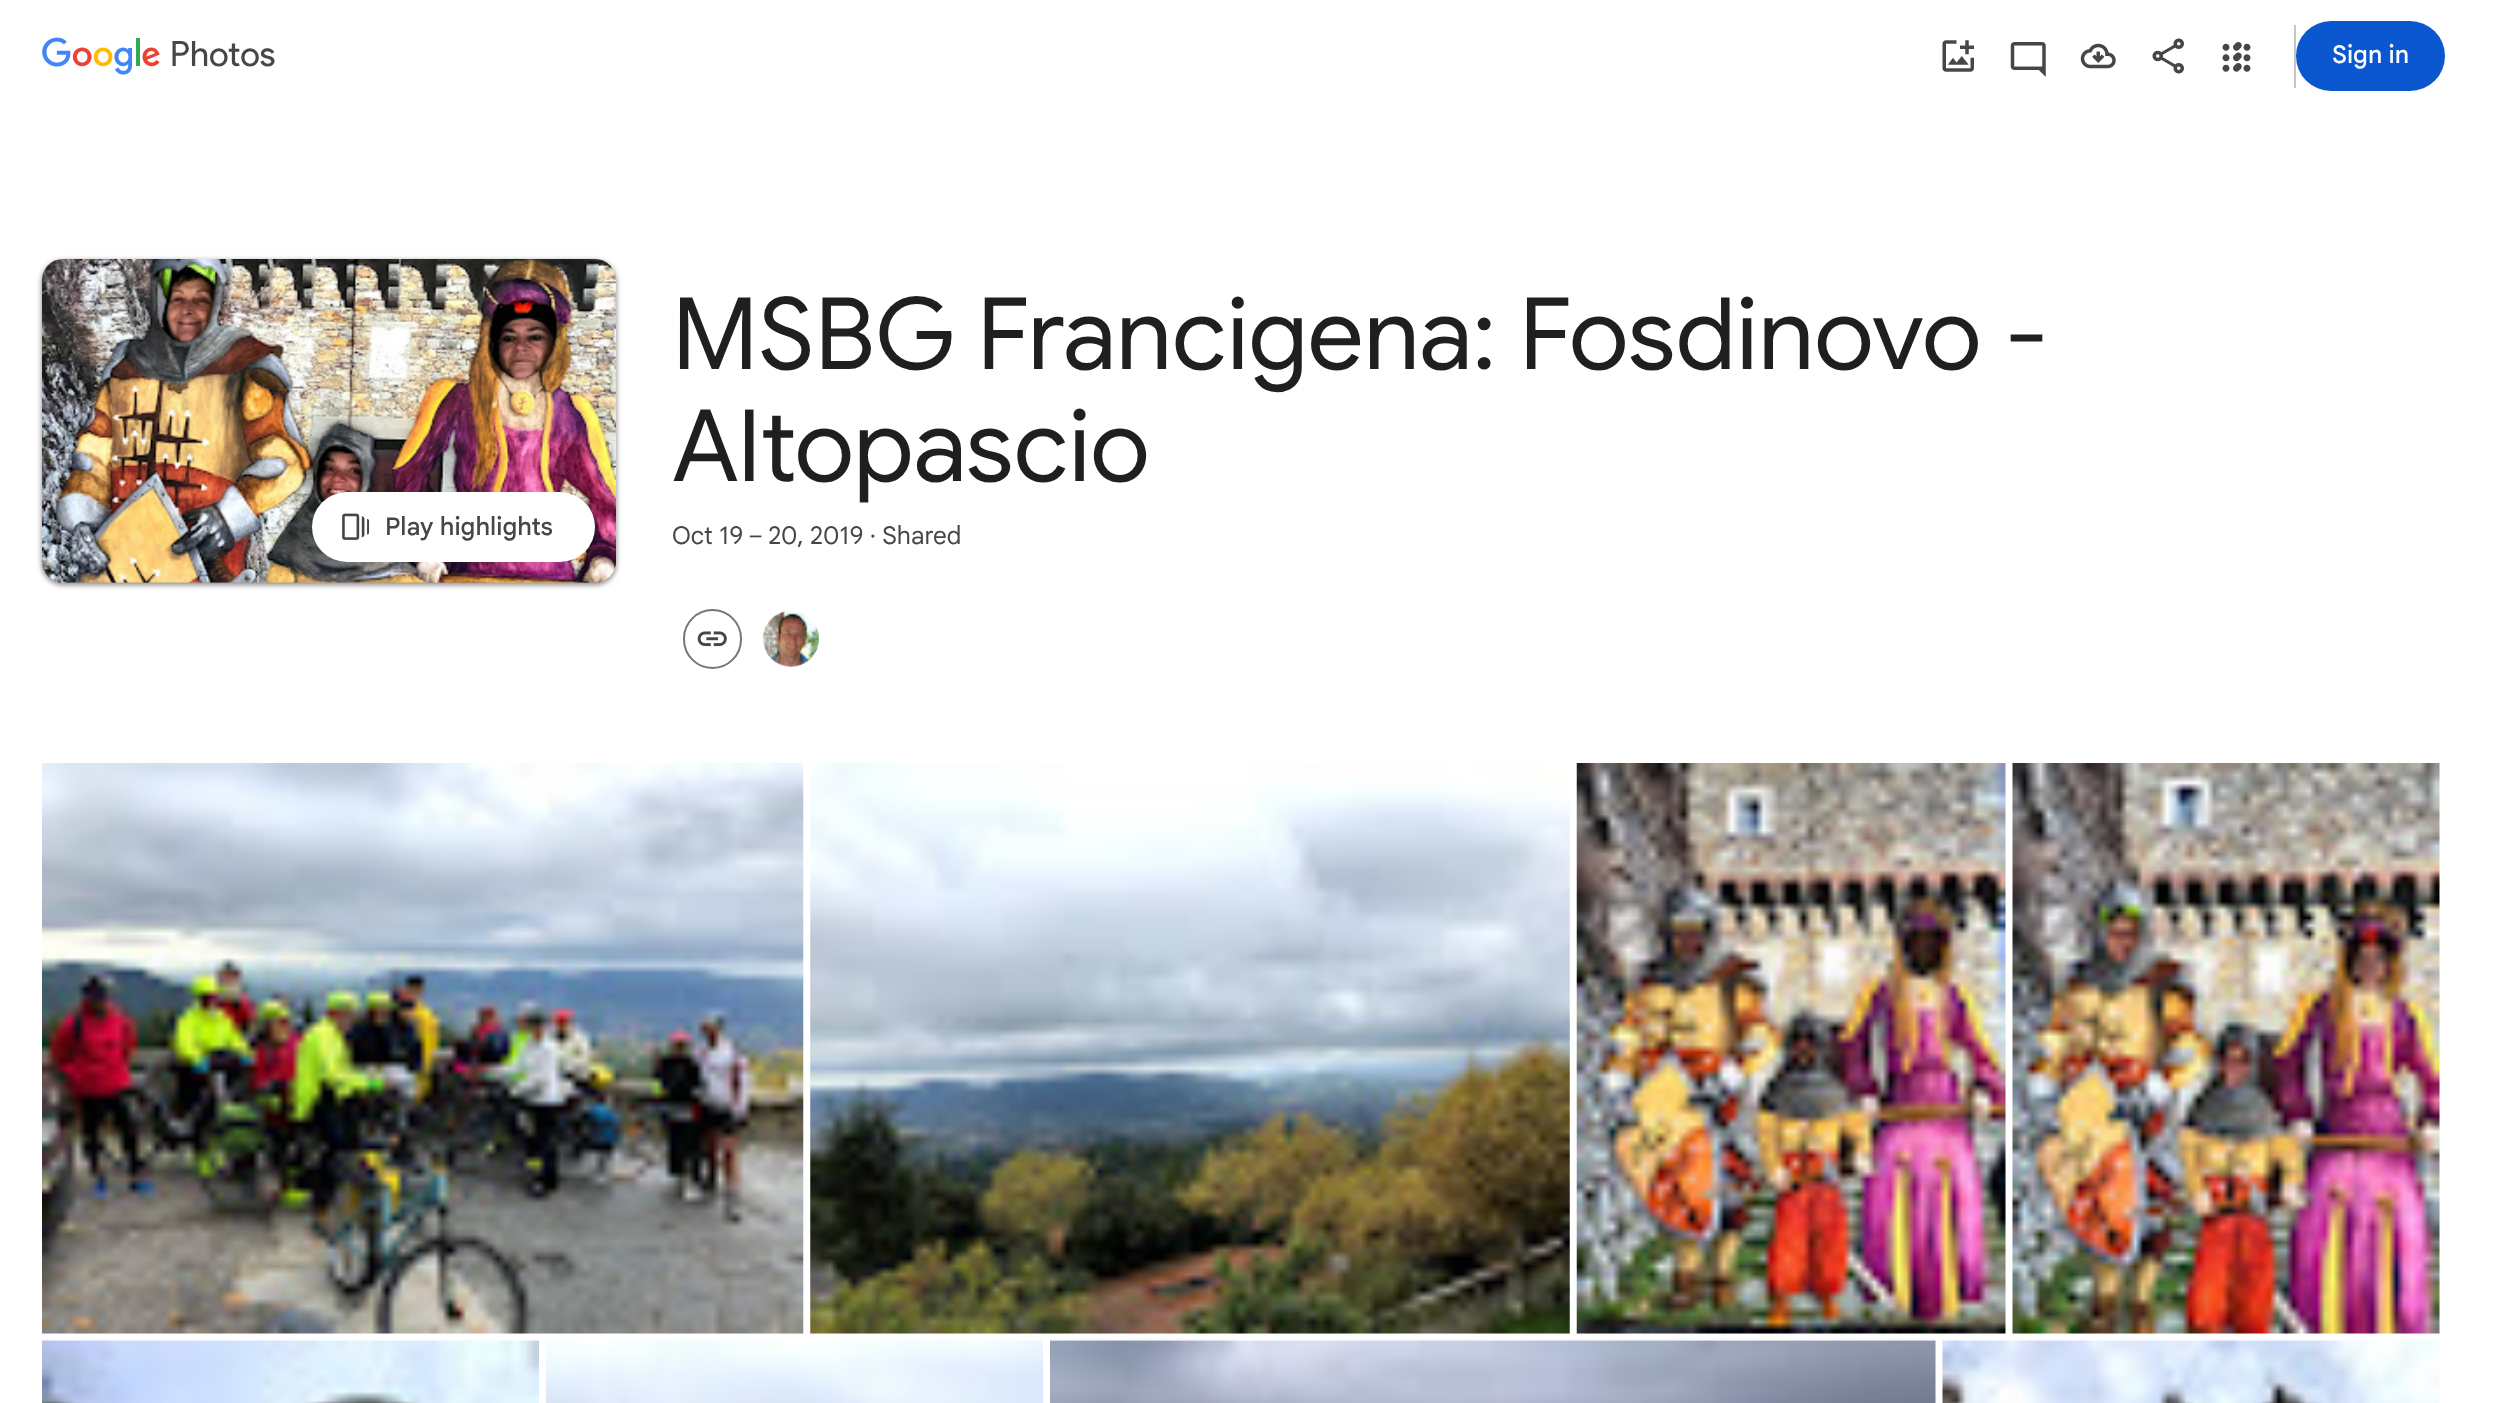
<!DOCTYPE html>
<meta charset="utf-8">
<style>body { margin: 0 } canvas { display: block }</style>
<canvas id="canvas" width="2507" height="1403"></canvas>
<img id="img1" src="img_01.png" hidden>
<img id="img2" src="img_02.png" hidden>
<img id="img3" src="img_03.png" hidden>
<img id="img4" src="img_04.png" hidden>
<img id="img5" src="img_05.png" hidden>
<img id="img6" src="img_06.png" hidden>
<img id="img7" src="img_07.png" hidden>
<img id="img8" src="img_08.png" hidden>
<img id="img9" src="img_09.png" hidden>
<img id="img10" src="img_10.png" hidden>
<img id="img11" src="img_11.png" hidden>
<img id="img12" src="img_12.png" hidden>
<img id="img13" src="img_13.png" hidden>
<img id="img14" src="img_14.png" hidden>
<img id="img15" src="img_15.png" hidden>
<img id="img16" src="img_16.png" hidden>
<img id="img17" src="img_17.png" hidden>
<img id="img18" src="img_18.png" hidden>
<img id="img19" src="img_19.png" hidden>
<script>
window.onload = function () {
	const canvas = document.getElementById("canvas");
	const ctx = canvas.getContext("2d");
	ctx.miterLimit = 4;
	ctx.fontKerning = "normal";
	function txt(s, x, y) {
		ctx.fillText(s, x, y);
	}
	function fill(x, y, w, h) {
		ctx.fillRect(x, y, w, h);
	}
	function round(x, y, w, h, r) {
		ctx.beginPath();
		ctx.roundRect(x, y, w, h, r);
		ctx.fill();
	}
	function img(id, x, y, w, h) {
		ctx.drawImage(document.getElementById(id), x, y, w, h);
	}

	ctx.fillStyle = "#FFFFFF";
	fill(0, 0, 2507, 1403);
	img("img1", 42, 37, 118, 38);
	img("img2", 1942, 40, 32, 32);
	img("img3", 2010, 42, 36, 35);
	img("img4", 2080, 43, 36, 26);
	img("img5", 2152, 38, 32, 36);
	img("img6", 2234, 42, 8, 28);
	ctx.fillStyle = "#C4C7C5";
	fill(2294, 25, 2, 63);
	ctx.fillStyle = "#F8FAFD";
	round(42, 259, 574, 324, 21);
	ctx.fillStyle = "rgba(0, 0, 0, 0.15)";
	ctx.filter = "blur(2.5px)";
	ctx.beginPath();
	ctx.roundRect(40, 259, 578, 327, 23);
	ctx.fill();
	ctx.filter = "none";
	ctx.fillStyle = "rgba(0, 0, 0, 0.3)";
	ctx.filter = "blur(2px)";
	ctx.beginPath();
	ctx.roundRect(42, 261, 574, 324, 21);
	ctx.fill();
	ctx.filter = "none";
	img("img7", 42, 259, 574, 324);
	ctx.fillStyle = "#FFFFFF";
	round(312, 492, 283, 70, 35);
	img("img8", 342, 513, 28, 27);
	ctx.beginPath();
	ctx.roundRect(684, 610, 57, 58, 28.5);
	ctx.strokeStyle = "#747775";
	ctx.lineWidth = 2;
	ctx.stroke();
	img("img9", 697, 631, 30, 16);
	img("img10", 763, 611, 56, 56);
	img("img11", 42, 763, 762, 571);
	img("img12", 810, 763, 760, 571);
	img("img13", 1576, 763, 430, 571);
	img("img14", 2012, 763, 428, 571);
	img("img15", 42, 1339, 497, 64);
	img("img16", 546, 1340, 497, 63);
	img("img17", 1050, 1339, 886, 64);
	img("img18", 1942, 1339, 498, 64);
	img("img19", 2222, 43, 29, 29);
	ctx.fillStyle = "#0B57D0";
	round(2296, 21, 149, 70, 35);
	ctx.font = "35px Product Sans";
	ctx.fillStyle = "#444746";
	txt("Photos", 170, 66);
	ctx.font = "500 24.5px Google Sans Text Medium";
	txt("Play highlights", 385, 535);
	ctx.font = "99.75px Google Sans";
	ctx.fillStyle = "#1F1F1F";
	txt("MSBG Francigena: Fosdinovo -", 672, 369);
	txt("Altopascio", 672, 481);
	ctx.font = "24.5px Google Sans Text";
	ctx.fillStyle = "#444746";
	txt("Oct 19 – 20, 2019 · Shared", 672, 544);
	ctx.font = "500 24.5px Google Sans Text Medium";
	ctx.fillStyle = "#FFFFFF";
	txt("Sign in", 2332, 63);
};
</script>
